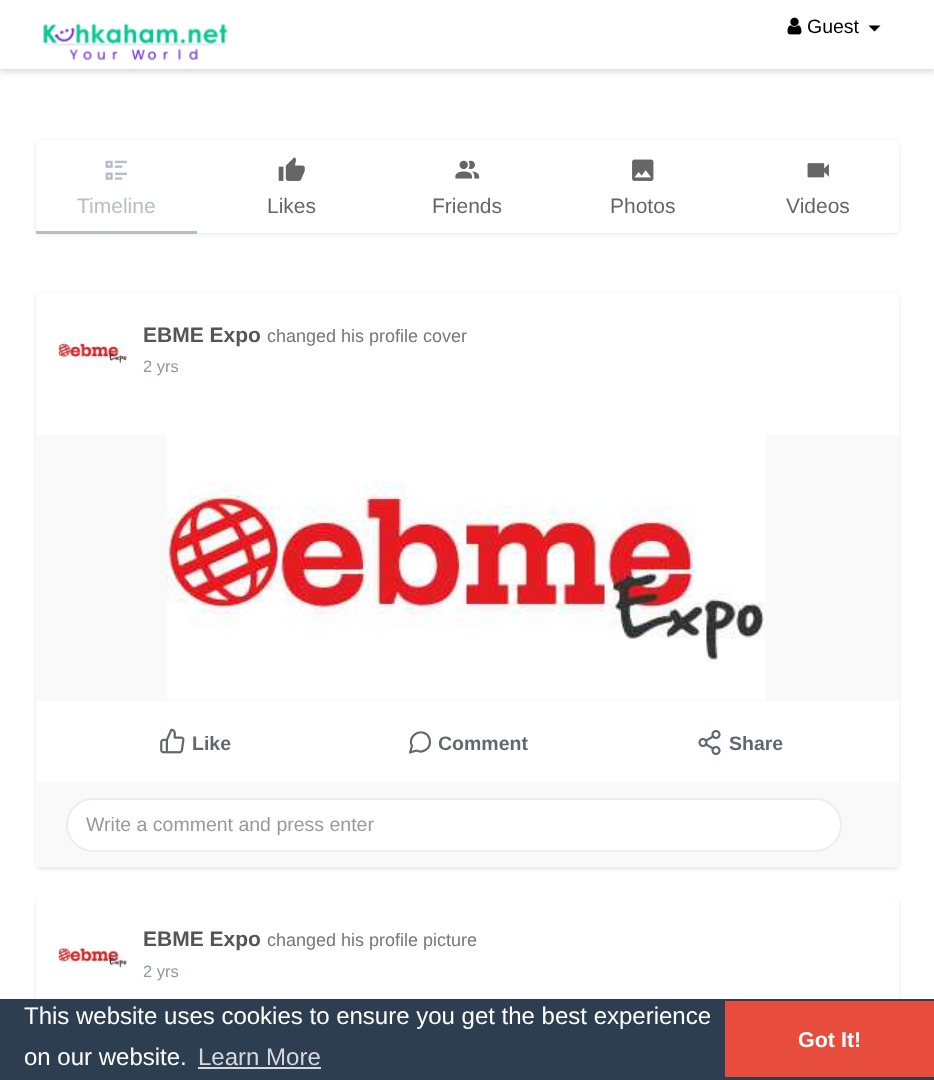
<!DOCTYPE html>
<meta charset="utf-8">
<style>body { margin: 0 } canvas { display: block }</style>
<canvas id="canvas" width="934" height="1080"></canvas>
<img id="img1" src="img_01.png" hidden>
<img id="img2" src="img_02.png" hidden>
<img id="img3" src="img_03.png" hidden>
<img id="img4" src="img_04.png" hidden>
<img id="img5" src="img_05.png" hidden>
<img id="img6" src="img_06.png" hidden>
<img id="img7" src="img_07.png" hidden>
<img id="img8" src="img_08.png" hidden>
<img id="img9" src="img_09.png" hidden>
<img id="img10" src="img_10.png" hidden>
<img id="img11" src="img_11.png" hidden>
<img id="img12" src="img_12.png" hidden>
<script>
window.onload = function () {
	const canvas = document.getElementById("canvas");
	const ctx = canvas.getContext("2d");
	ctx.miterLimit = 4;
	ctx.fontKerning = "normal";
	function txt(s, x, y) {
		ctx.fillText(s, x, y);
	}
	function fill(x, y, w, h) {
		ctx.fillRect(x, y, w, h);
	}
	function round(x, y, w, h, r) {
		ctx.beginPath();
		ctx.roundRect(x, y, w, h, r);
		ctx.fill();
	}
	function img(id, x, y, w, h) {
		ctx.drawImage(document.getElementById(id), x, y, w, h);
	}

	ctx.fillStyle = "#FFFFFF";
	fill(0, 0, 934, 1080);
	ctx.fillStyle = "rgba(0, 0, 0, 0.15)";
	ctx.filter = "blur(3px)";
	ctx.beginPath();
	ctx.rect(0, 3, 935, 69);
	ctx.fill();
	ctx.filter = "none";
	ctx.fillStyle = "#FFFFFF";
	fill(0, 0, 934, 69);
	img("img1", 43, 23, 185, 38);
	img("img2", 787, 17, 15, 18);
	ctx.fillStyle = "#000000";
	ctx.beginPath();
	ctx.moveTo(868.5, 25.5);
	ctx.lineTo(880.5, 25.5);
	ctx.lineTo(874.5, 31.5);
	ctx.closePath();
	ctx.fill();
	ctx.fillStyle = "rgba(0, 0, 0, 0.1)";
	ctx.filter = "blur(2px)";
	ctx.beginPath();
	ctx.roundRect(36, 141, 863, 93, 6);
	ctx.fill();
	ctx.filter = "none";
	ctx.fillStyle = "#FFFFFF";
	round(36, 140, 863, 93, 6);
	ctx.fillStyle = "#B8BCC6";
	fill(36, 231, 161, 3);
	img("img3", 105, 160, 22, 20);
	img("img4", 278, 157, 27, 24);
	img("img5", 455, 160, 25, 19);
	img("img6", 632, 159, 22, 22);
	img("img7", 807, 163, 22, 15);
	ctx.fillStyle = "rgba(0, 0, 0, 0.1)";
	ctx.filter = "blur(2px)";
	ctx.beginPath();
	ctx.roundRect(36, 294, 863, 575, 6);
	ctx.fill();
	ctx.filter = "none";
	ctx.fillStyle = "#FFFFFF";
	round(36, 293, 863, 574, 6);
	img("img8", 58, 339, 69, 26);
	ctx.fillStyle = "#F9F9F9";
	fill(36, 435, 863, 266);
	img("img9", 166, 435, 600, 265);
	img("img10", 160, 728, 25, 26);
	ctx.beginPath();
	ctx.moveTo(430, 742);
	ctx.bezierCurveTo(430, 749, 422.5, 753.5, 416.5, 750.5);
	ctx.lineTo(410, 752.5);
	ctx.lineTo(412, 746);
	ctx.bezierCurveTo(407, 737, 419.5, 727.5, 427.5, 735);
	ctx.bezierCurveTo(429, 737, 430, 739.5, 430, 742);
	ctx.closePath();
	ctx.strokeStyle = "#616770";
	ctx.lineWidth = 2.2;
	ctx.lineCap = "round";
	ctx.lineJoin = "round";
	ctx.stroke();
	img("img11", 698, 730, 23, 25);
	fill(36, 782, 863, 85);
	ctx.fillStyle = "#FFFFFF";
	ctx.beginPath();
	ctx.roundRect(67, 799, 774, 52, 26);
	ctx.fill();
	ctx.strokeStyle = "#EDEDED";
	ctx.lineWidth = 2;
	ctx.lineJoin = "miter";
	ctx.stroke();
	ctx.fillStyle = "rgba(0, 0, 0, 0.1)";
	ctx.filter = "blur(2px)";
	ctx.beginPath();
	ctx.roundRect(36, 899, 863, 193, 6);
	ctx.fill();
	ctx.filter = "none";
	ctx.fillStyle = "#FFFFFF";
	round(36, 897, 863, 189, 6);
	img("img12", 58, 944, 69, 25);
	ctx.fillStyle = "#2C3E50";
	fill(0, 999, 934, 81);
	ctx.fillStyle = "#D5D8DC";
	fill(198, 1067, 123, 2);
	ctx.fillStyle = "#E74C3C";
	fill(725, 1001, 209, 76);
	ctx.font = "19.5px Liberation Sans";
	ctx.fillStyle = "#000000";
	txt("Guest", 807, 33);
	ctx.font = "21px Liberation Sans";
	ctx.fillStyle = "#B8BCC6";
	txt("Timeline", 77, 213);
	ctx.fillStyle = "#666666";
	txt("Likes", 267, 213);
	txt("Friends", 432, 213);
	txt("Photos", 610, 213);
	txt("Videos", 786, 213);
	ctx.font = "bold 21px Liberation Sans";
	ctx.fillStyle = "#555555";
	txt("EBME Expo", 143, 342);
	ctx.font = "18px Liberation Sans";
	ctx.fillStyle = "#777777";
	txt("changed his profile cover", 267, 342);
	ctx.font = "16.5px Liberation Sans";
	ctx.fillStyle = "#9197A3";
	txt("2 yrs", 143, 372);
	ctx.font = "bold 19.5px Liberation Sans";
	ctx.fillStyle = "#616770";
	txt("Like", 192, 750);
	txt("Comment", 438, 750);
	txt("Share", 729, 750);
	ctx.font = "19.5px Liberation Sans";
	ctx.fillStyle = "#999999";
	txt("Write a comment and press enter", 86, 831);
	ctx.font = "bold 21px Liberation Sans";
	ctx.fillStyle = "#555555";
	txt("EBME Expo", 143, 946);
	ctx.font = "18px Liberation Sans";
	ctx.fillStyle = "#777777";
	txt("changed his profile picture", 267, 946);
	ctx.font = "16.5px Liberation Sans";
	ctx.fillStyle = "#9197A3";
	txt("2 yrs", 143, 977);
	ctx.font = "24px Liberation Sans";
	ctx.fillStyle = "#FFFFFF";
	txt("This website uses cookies to ensure you get the best experience", 24, 1024);
	txt("on our website.", 24, 1065);
	ctx.fillStyle = "#D5D8DC";
	txt("Learn More", 198, 1065);
	ctx.font = "bold 21.5px Liberation Sans";
	ctx.fillStyle = "#FFFFFF";
	txt("Got It!", 798, 1047);
};
</script>
